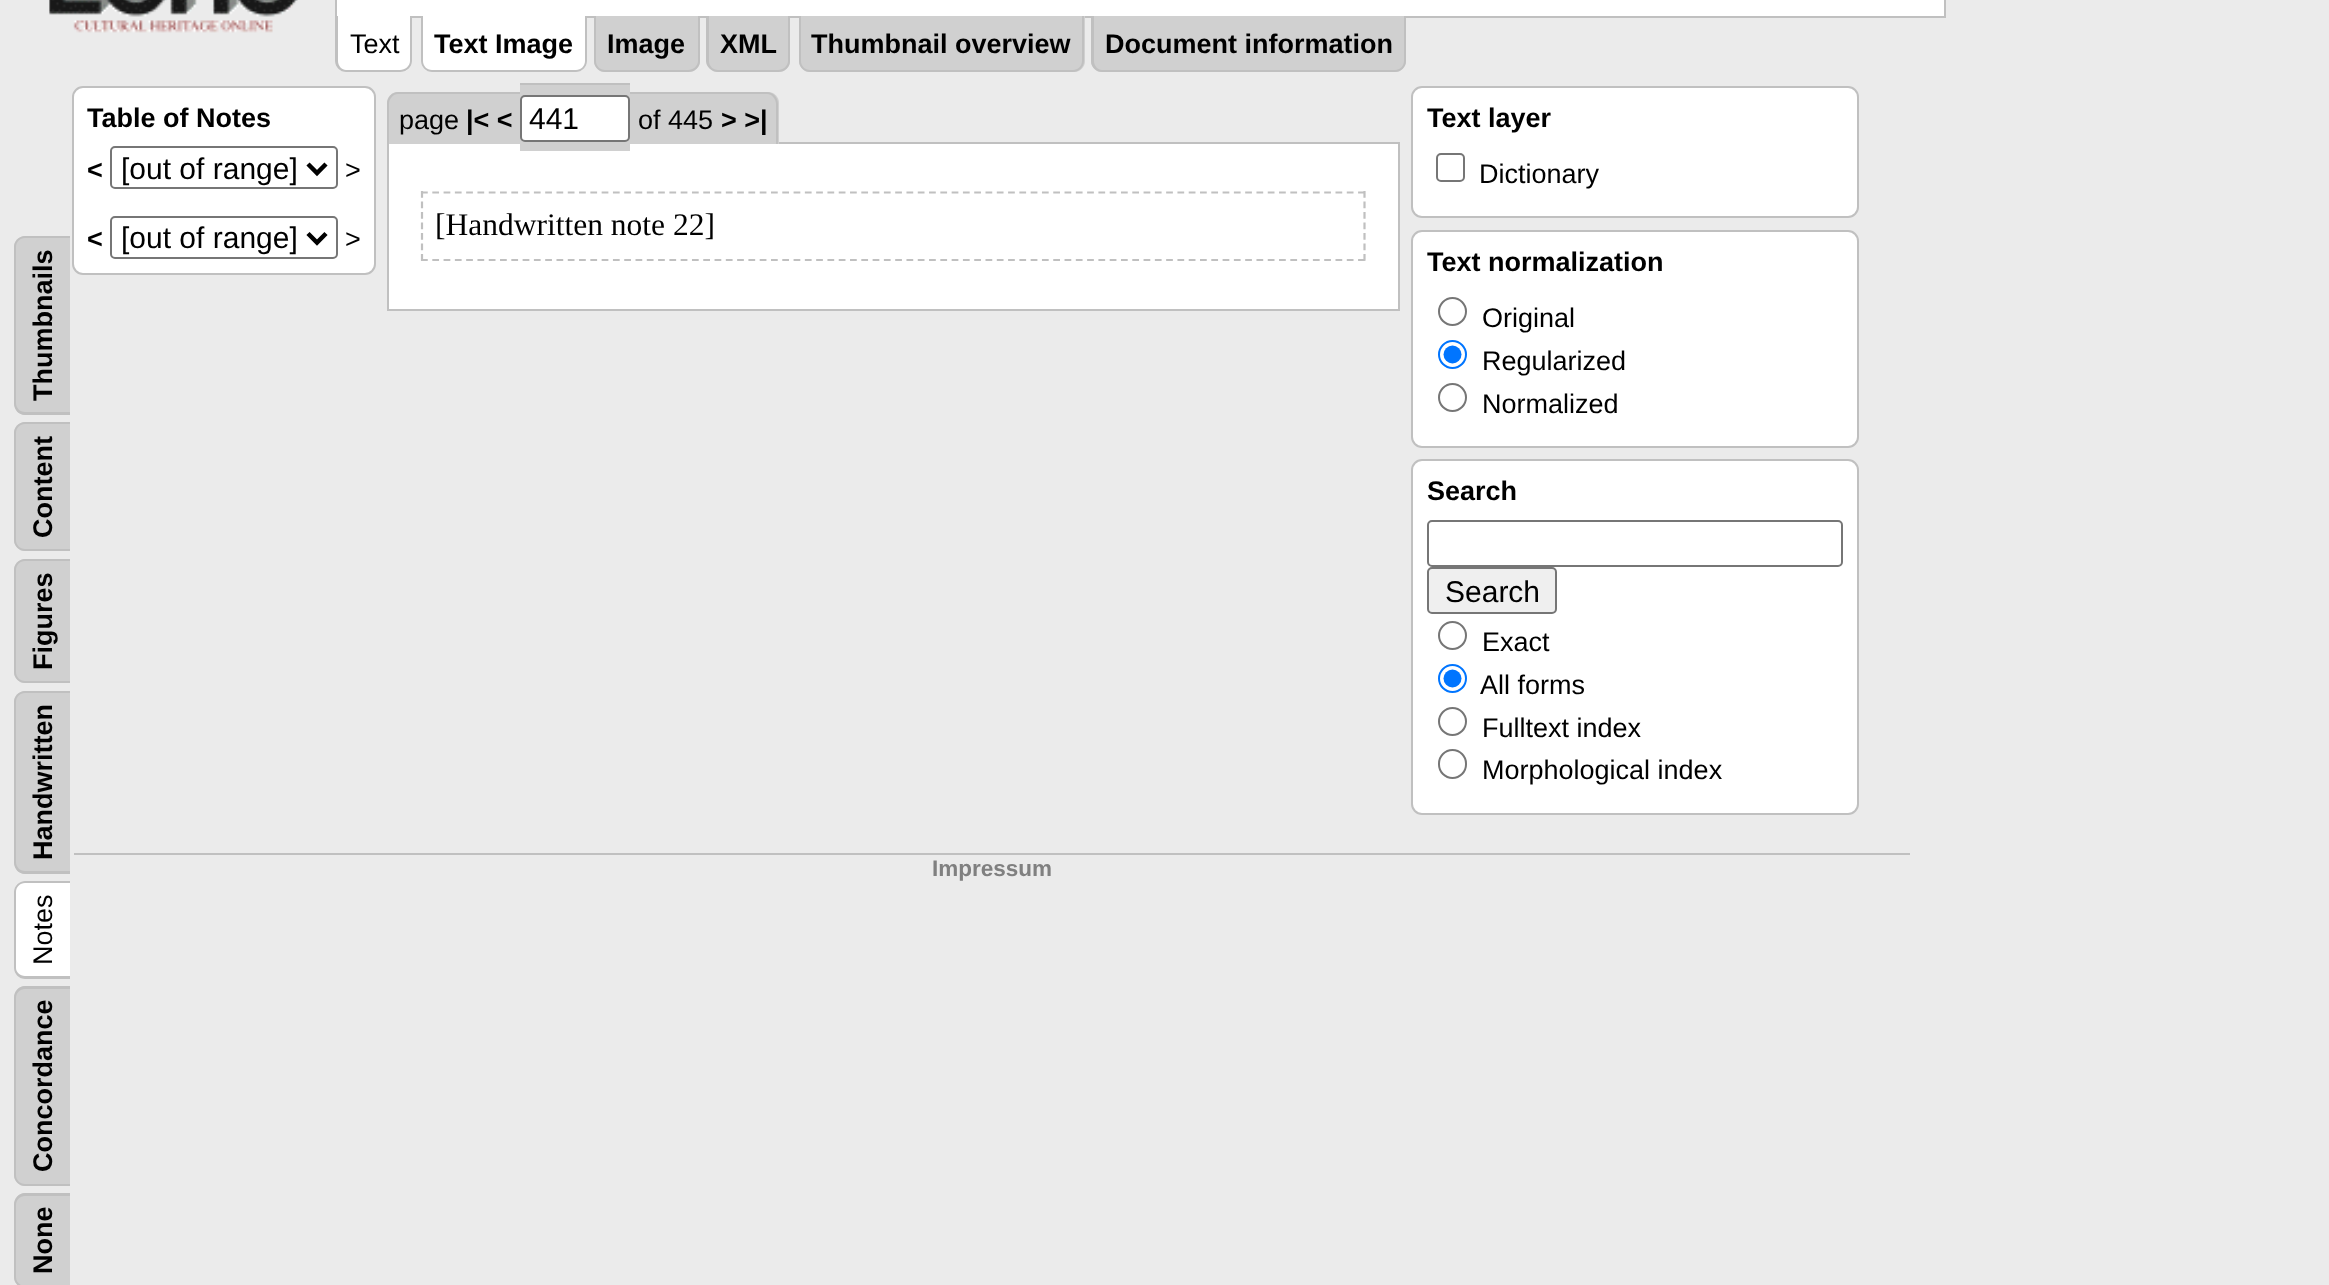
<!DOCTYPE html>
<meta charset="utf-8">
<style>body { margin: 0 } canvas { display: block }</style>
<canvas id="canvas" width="2329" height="1285"></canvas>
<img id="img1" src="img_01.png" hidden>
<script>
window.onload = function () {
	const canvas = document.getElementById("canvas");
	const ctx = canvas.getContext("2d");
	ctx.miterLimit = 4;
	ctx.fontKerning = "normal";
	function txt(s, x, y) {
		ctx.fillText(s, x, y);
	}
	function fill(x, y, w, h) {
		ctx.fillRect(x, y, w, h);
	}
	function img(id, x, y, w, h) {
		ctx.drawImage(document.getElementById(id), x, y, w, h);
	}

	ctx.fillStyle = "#EBEBEB";
	fill(0, 0, 2329, 1285);
	img("img1", 49, 0, 249, 33);
	ctx.fillStyle = "#FFFFFF";
	ctx.beginPath();
	ctx.rect(336, -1, 1609, 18);
	ctx.fill();
	ctx.strokeStyle = "#C0C0C0";
	ctx.lineWidth = 2;
	ctx.stroke();
	ctx.beginPath();
	ctx.roundRect(335, 16, 77, 56, [0, 0, 11, 11]);
	ctx.fill();
	ctx.fillStyle = "#C0C0C0";
	ctx.beginPath();
	ctx.moveTo(335, 16);
	ctx.lineTo(412, 16);
	ctx.lineTo(412, 61);
	ctx.bezierCurveTo(412, 67, 407, 72, 400, 72);
	ctx.lineTo(346, 72);
	ctx.bezierCurveTo(340, 72, 335, 67, 335, 61);
	ctx.closePath();
	ctx.moveTo(338, 16);
	ctx.lineTo(410, 16);
	ctx.lineTo(410, 61);
	ctx.bezierCurveTo(410, 66, 405, 70, 400, 70);
	ctx.lineTo(346, 70);
	ctx.bezierCurveTo(342, 70, 338, 66, 338, 61);
	ctx.closePath();
	ctx.fill("evenodd");
	ctx.fillStyle = "#FFFFFF";
	ctx.beginPath();
	ctx.roundRect(421, 16, 166, 56, [0, 0, 11, 11]);
	ctx.fill();
	ctx.fillStyle = "#C0C0C0";
	ctx.beginPath();
	ctx.moveTo(421, 16);
	ctx.lineTo(587, 16);
	ctx.lineTo(587, 61);
	ctx.bezierCurveTo(587, 67, 582, 72, 576, 72);
	ctx.lineTo(432, 72);
	ctx.bezierCurveTo(426, 72, 421, 67, 421, 61);
	ctx.closePath();
	ctx.moveTo(423, 16);
	ctx.lineTo(585, 16);
	ctx.lineTo(585, 61);
	ctx.bezierCurveTo(585, 66, 581, 70, 576, 70);
	ctx.lineTo(432, 70);
	ctx.bezierCurveTo(427, 70, 423, 66, 423, 61);
	ctx.closePath();
	ctx.fill("evenodd");
	ctx.fillStyle = "#D0D0D0";
	ctx.beginPath();
	ctx.roundRect(594, 16, 106, 56, [0, 0, 11, 11]);
	ctx.fill();
	ctx.fillStyle = "#C0C0C0";
	ctx.beginPath();
	ctx.moveTo(594, 16);
	ctx.lineTo(700, 16);
	ctx.lineTo(700, 61);
	ctx.bezierCurveTo(700, 67, 695, 72, 688, 72);
	ctx.lineTo(605, 72);
	ctx.bezierCurveTo(599, 72, 594, 67, 594, 61);
	ctx.closePath();
	ctx.moveTo(596, 16);
	ctx.lineTo(698, 16);
	ctx.lineTo(698, 61);
	ctx.bezierCurveTo(698, 66, 693, 70, 688, 70);
	ctx.lineTo(605, 70);
	ctx.bezierCurveTo(600, 70, 596, 66, 596, 61);
	ctx.closePath();
	ctx.fill("evenodd");
	ctx.fillStyle = "#D0D0D0";
	ctx.beginPath();
	ctx.roundRect(707, 16, 83, 56, [0, 0, 11, 11]);
	ctx.fill();
	ctx.fillStyle = "#C0C0C0";
	ctx.beginPath();
	ctx.moveTo(706, 16);
	ctx.lineTo(790, 16);
	ctx.lineTo(790, 61);
	ctx.bezierCurveTo(790, 67, 785, 72, 778, 72);
	ctx.lineTo(718, 72);
	ctx.bezierCurveTo(712, 72, 706, 67, 706, 61);
	ctx.closePath();
	ctx.moveTo(709, 16);
	ctx.lineTo(788, 16);
	ctx.lineTo(788, 61);
	ctx.bezierCurveTo(788, 66, 783, 70, 778, 70);
	ctx.lineTo(718, 70);
	ctx.bezierCurveTo(713, 70, 709, 66, 709, 61);
	ctx.closePath();
	ctx.fill("evenodd");
	ctx.fillStyle = "#D0D0D0";
	ctx.beginPath();
	ctx.roundRect(799, 16, 286, 56, [0, 0, 11, 11]);
	ctx.fill();
	ctx.fillStyle = "#C0C0C0";
	ctx.beginPath();
	ctx.moveTo(799, 16);
	ctx.lineTo(1084, 16);
	ctx.lineTo(1084, 61);
	ctx.bezierCurveTo(1084, 67, 1079, 72, 1073, 72);
	ctx.lineTo(810, 72);
	ctx.bezierCurveTo(804, 72, 799, 67, 799, 61);
	ctx.closePath();
	ctx.moveTo(801, 16);
	ctx.lineTo(1082, 16);
	ctx.lineTo(1082, 61);
	ctx.bezierCurveTo(1082, 66, 1078, 70, 1073, 70);
	ctx.lineTo(810, 70);
	ctx.bezierCurveTo(805, 70, 801, 66, 801, 61);
	ctx.closePath();
	ctx.fill("evenodd");
	ctx.fillStyle = "#D0D0D0";
	ctx.beginPath();
	ctx.roundRect(1091, 16, 315, 56, [0, 0, 11, 11]);
	ctx.fill();
	ctx.fillStyle = "#C0C0C0";
	ctx.beginPath();
	ctx.moveTo(1091, 16);
	ctx.lineTo(1406, 16);
	ctx.lineTo(1406, 61);
	ctx.bezierCurveTo(1406, 67, 1401, 72, 1395, 72);
	ctx.lineTo(1102, 72);
	ctx.bezierCurveTo(1096, 72, 1091, 67, 1091, 61);
	ctx.closePath();
	ctx.moveTo(1094, 16);
	ctx.lineTo(1404, 16);
	ctx.lineTo(1404, 61);
	ctx.bezierCurveTo(1404, 66, 1400, 70, 1395, 70);
	ctx.lineTo(1102, 70);
	ctx.bezierCurveTo(1098, 70, 1094, 66, 1094, 61);
	ctx.closePath();
	ctx.fill("evenodd");
	ctx.fillStyle = "#FFFFFF";
	ctx.beginPath();
	ctx.roundRect(73, 87, 302, 187, 10);
	ctx.fill();
	ctx.stroke();
	ctx.beginPath();
	ctx.roundRect(111, 147, 226, 41, 4);
	ctx.strokeStyle = "#767676";
	ctx.stroke();
	ctx.beginPath();
	ctx.moveTo(308, 164);
	ctx.lineTo(317, 173);
	ctx.lineTo(326, 164);
	ctx.strokeStyle = "#000000";
	ctx.lineWidth = 4.5;
	ctx.stroke();
	ctx.beginPath();
	ctx.roundRect(111, 217, 226, 41, 4);
	ctx.strokeStyle = "#767676";
	ctx.lineWidth = 2;
	ctx.stroke();
	ctx.beginPath();
	ctx.moveTo(308, 233.5);
	ctx.lineTo(317, 242.5);
	ctx.lineTo(326, 233.5);
	ctx.strokeStyle = "#000000";
	ctx.lineWidth = 4.5;
	ctx.stroke();
	ctx.fillStyle = "#D0D0D0";
	ctx.beginPath();
	ctx.moveTo(14, 403);
	ctx.lineTo(14, 247);
	ctx.bezierCurveTo(14, 241, 19, 236, 25, 236);
	ctx.lineTo(70, 236);
	ctx.lineTo(70, 415);
	ctx.lineTo(25, 415);
	ctx.bezierCurveTo(19, 415, 14, 410, 14, 403);
	ctx.closePath();
	ctx.fill();
	ctx.fillStyle = "#C0C0C0";
	ctx.beginPath();
	ctx.moveTo(14, 403);
	ctx.lineTo(14, 247);
	ctx.bezierCurveTo(14, 241, 19, 236, 25, 236);
	ctx.lineTo(70, 236);
	ctx.lineTo(70, 415);
	ctx.lineTo(25, 415);
	ctx.bezierCurveTo(19, 415, 14, 410, 14, 403);
	ctx.closePath();
	ctx.moveTo(16, 403);
	ctx.lineTo(16, 247);
	ctx.bezierCurveTo(16, 242, 20, 238, 25, 238);
	ctx.lineTo(70, 238);
	ctx.lineTo(70, 412);
	ctx.lineTo(25, 412);
	ctx.bezierCurveTo(20, 412, 16, 408, 16, 403);
	ctx.closePath();
	ctx.fill("evenodd");
	ctx.fillStyle = "#D0D0D0";
	ctx.beginPath();
	ctx.moveTo(14, 540);
	ctx.lineTo(14, 433);
	ctx.bezierCurveTo(14, 427, 19, 422, 25, 422);
	ctx.lineTo(70, 422);
	ctx.lineTo(70, 551);
	ctx.lineTo(25, 551);
	ctx.bezierCurveTo(19, 551, 14, 546, 14, 540);
	ctx.closePath();
	ctx.fill();
	ctx.fillStyle = "#C0C0C0";
	ctx.beginPath();
	ctx.moveTo(14, 540);
	ctx.lineTo(14, 433);
	ctx.bezierCurveTo(14, 427, 19, 422, 25, 422);
	ctx.lineTo(70, 422);
	ctx.lineTo(70, 551);
	ctx.lineTo(25, 551);
	ctx.bezierCurveTo(19, 551, 14, 546, 14, 540);
	ctx.closePath();
	ctx.moveTo(16, 540);
	ctx.lineTo(16, 433);
	ctx.bezierCurveTo(16, 428, 20, 424, 25, 424);
	ctx.lineTo(70, 424);
	ctx.lineTo(70, 549);
	ctx.lineTo(25, 549);
	ctx.bezierCurveTo(20, 549, 16, 545, 16, 540);
	ctx.closePath();
	ctx.fill("evenodd");
	ctx.fillStyle = "#D0D0D0";
	ctx.beginPath();
	ctx.moveTo(14, 672);
	ctx.lineTo(14, 570);
	ctx.bezierCurveTo(14, 564, 19, 559, 25, 559);
	ctx.lineTo(70, 559);
	ctx.lineTo(70, 683);
	ctx.lineTo(25, 683);
	ctx.bezierCurveTo(19, 683, 14, 678, 14, 672);
	ctx.closePath();
	ctx.fill();
	ctx.fillStyle = "#C0C0C0";
	ctx.beginPath();
	ctx.moveTo(14, 672);
	ctx.lineTo(14, 570);
	ctx.bezierCurveTo(14, 564, 19, 559, 25, 559);
	ctx.lineTo(70, 559);
	ctx.lineTo(70, 683);
	ctx.lineTo(25, 683);
	ctx.bezierCurveTo(19, 683, 14, 678, 14, 672);
	ctx.closePath();
	ctx.moveTo(16, 672);
	ctx.lineTo(16, 570);
	ctx.bezierCurveTo(16, 565, 20, 561, 25, 561);
	ctx.lineTo(70, 561);
	ctx.lineTo(70, 681);
	ctx.lineTo(25, 681);
	ctx.bezierCurveTo(20, 681, 16, 677, 16, 672);
	ctx.closePath();
	ctx.fill("evenodd");
	ctx.fillStyle = "#D0D0D0";
	ctx.beginPath();
	ctx.moveTo(14, 862);
	ctx.lineTo(14, 702);
	ctx.bezierCurveTo(14, 696, 19, 691, 25, 691);
	ctx.lineTo(70, 691);
	ctx.lineTo(70, 874);
	ctx.lineTo(25, 874);
	ctx.bezierCurveTo(19, 874, 14, 869, 14, 862);
	ctx.closePath();
	ctx.fill();
	ctx.fillStyle = "#C0C0C0";
	ctx.beginPath();
	ctx.moveTo(14, 862);
	ctx.lineTo(14, 702);
	ctx.bezierCurveTo(14, 696, 19, 691, 25, 691);
	ctx.lineTo(70, 691);
	ctx.lineTo(70, 874);
	ctx.lineTo(25, 874);
	ctx.bezierCurveTo(19, 874, 14, 869, 14, 862);
	ctx.closePath();
	ctx.moveTo(16, 862);
	ctx.lineTo(16, 702);
	ctx.bezierCurveTo(16, 697, 20, 693, 25, 693);
	ctx.lineTo(70, 693);
	ctx.lineTo(70, 871);
	ctx.lineTo(25, 871);
	ctx.bezierCurveTo(20, 871, 16, 867, 16, 862);
	ctx.closePath();
	ctx.fill("evenodd");
	ctx.fillStyle = "#FFFFFF";
	ctx.beginPath();
	ctx.moveTo(14, 968);
	ctx.lineTo(14, 892);
	ctx.bezierCurveTo(14, 886, 19, 881, 25, 881);
	ctx.lineTo(70, 881);
	ctx.lineTo(70, 979);
	ctx.lineTo(25, 979);
	ctx.bezierCurveTo(19, 979, 14, 974, 14, 968);
	ctx.closePath();
	ctx.fill();
	ctx.fillStyle = "#C0C0C0";
	ctx.beginPath();
	ctx.moveTo(14, 968);
	ctx.lineTo(14, 892);
	ctx.bezierCurveTo(14, 886, 19, 881, 25, 881);
	ctx.lineTo(70, 881);
	ctx.lineTo(70, 979);
	ctx.lineTo(25, 979);
	ctx.bezierCurveTo(19, 979, 14, 974, 14, 968);
	ctx.closePath();
	ctx.moveTo(16, 968);
	ctx.lineTo(16, 892);
	ctx.bezierCurveTo(16, 887, 20, 883, 25, 883);
	ctx.lineTo(70, 883);
	ctx.lineTo(70, 976);
	ctx.lineTo(25, 976);
	ctx.bezierCurveTo(20, 976, 16, 972, 16, 968);
	ctx.closePath();
	ctx.fill("evenodd");
	ctx.fillStyle = "#D0D0D0";
	ctx.beginPath();
	ctx.moveTo(14, 1175);
	ctx.lineTo(14, 998);
	ctx.bezierCurveTo(14, 991, 19, 986, 25, 986);
	ctx.lineTo(70, 986);
	ctx.lineTo(70, 1186);
	ctx.lineTo(25, 1186);
	ctx.bezierCurveTo(19, 1186, 14, 1181, 14, 1175);
	ctx.closePath();
	ctx.fill();
	ctx.fillStyle = "#C0C0C0";
	ctx.beginPath();
	ctx.moveTo(14, 1175);
	ctx.lineTo(14, 998);
	ctx.bezierCurveTo(14, 991, 19, 986, 25, 986);
	ctx.lineTo(70, 986);
	ctx.lineTo(70, 1186);
	ctx.lineTo(25, 1186);
	ctx.bezierCurveTo(19, 1186, 14, 1181, 14, 1175);
	ctx.closePath();
	ctx.moveTo(16, 1175);
	ctx.lineTo(16, 998);
	ctx.bezierCurveTo(16, 993, 20, 989, 25, 989);
	ctx.lineTo(70, 989);
	ctx.lineTo(70, 1184);
	ctx.lineTo(25, 1184);
	ctx.bezierCurveTo(20, 1184, 16, 1180, 16, 1175);
	ctx.closePath();
	ctx.fill("evenodd");
	ctx.fillStyle = "#D0D0D0";
	ctx.beginPath();
	ctx.moveTo(14, 1277);
	ctx.lineTo(14, 1205);
	ctx.bezierCurveTo(14, 1198, 19, 1193, 25, 1193);
	ctx.lineTo(70, 1193);
	ctx.lineTo(70, 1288);
	ctx.lineTo(25, 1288);
	ctx.bezierCurveTo(19, 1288, 14, 1283, 14, 1277);
	ctx.closePath();
	ctx.fill();
	ctx.fillStyle = "#C0C0C0";
	ctx.beginPath();
	ctx.moveTo(14, 1277);
	ctx.lineTo(14, 1205);
	ctx.bezierCurveTo(14, 1198, 19, 1193, 25, 1193);
	ctx.lineTo(70, 1193);
	ctx.lineTo(70, 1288);
	ctx.lineTo(25, 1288);
	ctx.bezierCurveTo(19, 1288, 14, 1283, 14, 1277);
	ctx.closePath();
	ctx.moveTo(16, 1277);
	ctx.lineTo(16, 1205);
	ctx.bezierCurveTo(16, 1200, 20, 1196, 25, 1196);
	ctx.lineTo(70, 1196);
	ctx.lineTo(70, 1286);
	ctx.lineTo(25, 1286);
	ctx.bezierCurveTo(20, 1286, 16, 1282, 16, 1277);
	ctx.closePath();
	ctx.fill("evenodd");
	ctx.fillStyle = "#FFFFFF";
	ctx.beginPath();
	ctx.rect(388, 143, 1011, 167);
	ctx.fill();
	ctx.strokeStyle = "#C0C0C0";
	ctx.lineWidth = 2;
	ctx.stroke();
	ctx.fillStyle = "#D0D0D0";
	ctx.beginPath();
	ctx.roundRect(387, 92, 79, 52, [11, 0, 0, 0]);
	ctx.fill();
	ctx.fillStyle = "#C0C0C0";
	ctx.beginPath();
	ctx.moveTo(398, 92);
	ctx.lineTo(466, 92);
	ctx.lineTo(466, 144);
	ctx.lineTo(387, 144);
	ctx.lineTo(387, 104);
	ctx.bezierCurveTo(387, 97, 392, 92, 398, 92);
	ctx.closePath();
	ctx.moveTo(398, 94);
	ctx.lineTo(466, 94);
	ctx.lineTo(466, 144);
	ctx.lineTo(389, 144);
	ctx.lineTo(389, 104);
	ctx.bezierCurveTo(389, 99, 393, 94, 398, 94);
	ctx.closePath();
	ctx.fill("evenodd");
	ctx.fillStyle = "#D0D0D0";
	fill(466, 94, 25, 50);
	ctx.fillStyle = "#C0C0C0";
	fill(466, 92, 25, 2);
	ctx.fillStyle = "#D0D0D0";
	fill(491, 92, 6, 52);
	ctx.fillStyle = "#C0C0C0";
	fill(491, 92, 22, 2);
	ctx.fillStyle = "#D0D0D0";
	fill(497, 94, 16, 50);
	fill(513, 92, 7, 52);
	ctx.fillStyle = "#C0C0C0";
	fill(513, 92, 7, 2);
	ctx.fillStyle = "#D0D0D0";
	fill(520, 85, 110, 66);
	ctx.fillStyle = "#C0C0C0";
	fill(520, 83, 110, 2);
	ctx.fillStyle = "#D0D0D0";
	fill(630, 94, 115, 50);
	ctx.fillStyle = "#C0C0C0";
	fill(630, 92, 115, 2);
	ctx.fillStyle = "#D0D0D0";
	ctx.beginPath();
	ctx.roundRect(745, 92, 34, 52, [0, 11, 0, 0]);
	ctx.fill();
	ctx.fillStyle = "#C0C0C0";
	ctx.beginPath();
	ctx.moveTo(745, 92);
	ctx.lineTo(767, 92);
	ctx.bezierCurveTo(773, 92, 778, 97, 778, 104);
	ctx.lineTo(778, 144);
	ctx.lineTo(745, 144);
	ctx.closePath();
	ctx.moveTo(745, 94);
	ctx.lineTo(767, 94);
	ctx.bezierCurveTo(772, 94, 776, 99, 776, 104);
	ctx.lineTo(776, 144);
	ctx.lineTo(745, 144);
	ctx.closePath();
	ctx.fill("evenodd");
	ctx.fillStyle = "#FFFFFF";
	ctx.beginPath();
	ctx.roundRect(521, 96, 108, 45, 4);
	ctx.fill();
	ctx.strokeStyle = "#767676";
	ctx.stroke();
	ctx.beginPath();
	ctx.moveTo(421, 192.5);
	ctx.lineTo(1366, 192.5);
	ctx.strokeStyle = "#C0C0C0";
	ctx.lineWidth = 2.2;
	ctx.setLineDash([6.75, 4.54]);
	ctx.stroke();
	ctx.beginPath();
	ctx.moveTo(1364.5, 191);
	ctx.lineTo(1364.5, 261);
	ctx.setLineDash([6.75, 3.76]);
	ctx.stroke();
	ctx.beginPath();
	ctx.moveTo(421, 260);
	ctx.lineTo(1366, 260);
	ctx.setLineDash([6.75, 4.54]);
	ctx.stroke();
	ctx.beginPath();
	ctx.moveTo(422, 191);
	ctx.lineTo(422, 261);
	ctx.setLineDash([6.75, 3.76]);
	ctx.stroke();
	ctx.beginPath();
	ctx.roundRect(1412, 87, 446, 130, 10);
	ctx.fill();
	ctx.lineWidth = 2;
	ctx.setLineDash([]);
	ctx.stroke();
	ctx.beginPath();
	ctx.roundRect(1437, 154, 27, 27, 4);
	ctx.strokeStyle = "#767676";
	ctx.stroke();
	ctx.beginPath();
	ctx.roundRect(1412, 231, 446, 216, 10);
	ctx.fill();
	ctx.strokeStyle = "#C0C0C0";
	ctx.stroke();
	ctx.beginPath();
	ctx.arc(1452.5, 311.5, 13.5, 0, Math.PI * 2);
	ctx.strokeStyle = "#767676";
	ctx.stroke();
	ctx.beginPath();
	ctx.arc(1452.5, 354.5, 13.5, 0, Math.PI * 2);
	ctx.strokeStyle = "#0075FF";
	ctx.stroke();
	ctx.fillStyle = "#0075FF";
	ctx.beginPath();
	ctx.arc(1452.5, 354.5, 9, 0, Math.PI * 2);
	ctx.fill();
	ctx.beginPath();
	ctx.arc(1452.5, 397.5, 13.5, 0, Math.PI * 2);
	ctx.strokeStyle = "#767676";
	ctx.stroke();
	ctx.fillStyle = "#FFFFFF";
	ctx.beginPath();
	ctx.roundRect(1412, 460, 446, 354, 10);
	ctx.fill();
	ctx.strokeStyle = "#C0C0C0";
	ctx.stroke();
	ctx.beginPath();
	ctx.roundRect(1428, 521, 414, 45, 4);
	ctx.strokeStyle = "#767676";
	ctx.stroke();
	ctx.fillStyle = "#EFEFEF";
	ctx.beginPath();
	ctx.roundRect(1428, 568, 128, 45, 4);
	ctx.fill();
	ctx.stroke();
	ctx.beginPath();
	ctx.arc(1452.5, 635.5, 13.5, 0, Math.PI * 2);
	ctx.stroke();
	ctx.beginPath();
	ctx.arc(1452.5, 678.5, 13.5, 0, Math.PI * 2);
	ctx.strokeStyle = "#0075FF";
	ctx.stroke();
	ctx.fillStyle = "#0075FF";
	ctx.beginPath();
	ctx.arc(1452.5, 678.5, 9, 0, Math.PI * 2);
	ctx.fill();
	ctx.beginPath();
	ctx.arc(1452.5, 721.5, 13.5, 0, Math.PI * 2);
	ctx.strokeStyle = "#767676";
	ctx.stroke();
	ctx.beginPath();
	ctx.roundRect(1439, 750, 27, 28, 13.5);
	ctx.stroke();
	ctx.fillStyle = "#C0C0C0";
	fill(74, 853, 1836, 2);
	ctx.font = "27px Liberation Sans";
	ctx.fillStyle = "#000000";
	txt("Text", 350, 53);
	ctx.font = "bold 27px Liberation Sans";
	txt("Text Image", 434, 53);
	txt("Image", 607, 53);
	txt("XML", 720, 53);
	txt("Thumbnail overview", 811, 53);
	txt("Document information", 1105, 53);
	txt("Table of Notes", 87, 127);
	txt("<", 87, 179);
	ctx.font = "30px Liberation Sans";
	txt("[out of range]", 121, 179);
	ctx.font = "27px Liberation Sans";
	txt(">", 345, 179);
	ctx.font = "bold 27px Liberation Sans";
	txt("<", 87, 248);
	ctx.font = "30px Liberation Sans";
	txt("[out of range]", 121, 248);
	ctx.font = "27px Liberation Sans";
	txt(">", 345, 248);
	ctx.font = "bold 27px Liberation Sans";
	ctx.save();
	ctx.translate(52, 401);
	ctx.rotate(-90 * Math.PI / 180);
	ctx.fillText("Thumbnails", 0, 0);
	ctx.restore();
	ctx.save();
	ctx.translate(52, 538);
	ctx.rotate(-90 * Math.PI / 180);
	ctx.fillText("Content", 0, 0);
	ctx.restore();
	ctx.save();
	ctx.translate(52, 670);
	ctx.rotate(-90 * Math.PI / 180);
	ctx.fillText("Figures", 0, 0);
	ctx.restore();
	ctx.save();
	ctx.translate(52, 860);
	ctx.rotate(-90 * Math.PI / 180);
	ctx.fillText("Handwritten", 0, 0);
	ctx.restore();
	ctx.font = "27px Liberation Sans";
	ctx.save();
	ctx.translate(52, 965);
	ctx.rotate(-90 * Math.PI / 180);
	ctx.fillText("Notes", 0, 0);
	ctx.restore();
	ctx.font = "bold 27px Liberation Sans";
	ctx.save();
	ctx.translate(52, 1172);
	ctx.rotate(-90 * Math.PI / 180);
	ctx.fillText("Concordance", 0, 0);
	ctx.restore();
	ctx.save();
	ctx.translate(52, 1274);
	ctx.rotate(-90 * Math.PI / 180);
	ctx.fillText("None", 0, 0);
	ctx.restore();
	ctx.font = "27px Liberation Sans";
	txt("page", 399, 129);
	ctx.font = "bold 27px Liberation Sans";
	txt("|< <", 466, 129);
	ctx.font = "30px Liberation Sans";
	txt("441", 529, 129);
	ctx.font = "27px Liberation Sans";
	txt("of 445", 638, 129);
	ctx.font = "bold 27px Liberation Sans";
	txt("> >|", 721, 129);
	ctx.font = "31.5px Liberation Serif";
	txt("[Handwritten note 22]", 435, 235);
	ctx.font = "bold 27px Liberation Sans";
	txt("Text layer", 1427, 127);
	ctx.font = "27px Liberation Sans";
	txt("Dictionary", 1479, 183);
	ctx.font = "bold 27px Liberation Sans";
	txt("Text normalization", 1427, 271);
	ctx.font = "27px Liberation Sans";
	txt("Original", 1482, 327);
	txt("Regularized", 1482, 370);
	txt("Normalized", 1482, 413);
	ctx.font = "bold 27px Liberation Sans";
	txt("Search", 1427, 500);
	ctx.font = "30px Liberation Sans";
	txt("Search", 1445, 602);
	ctx.font = "27px Liberation Sans";
	txt("Exact", 1482, 651);
	txt("All forms", 1480, 694);
	txt("Fulltext index", 1482, 737);
	txt("Morphological index", 1482, 779);
	ctx.font = "bold 22.5px Liberation Sans";
	ctx.fillStyle = "#808080";
	txt("Impressum", 932, 876);
};
</script>
